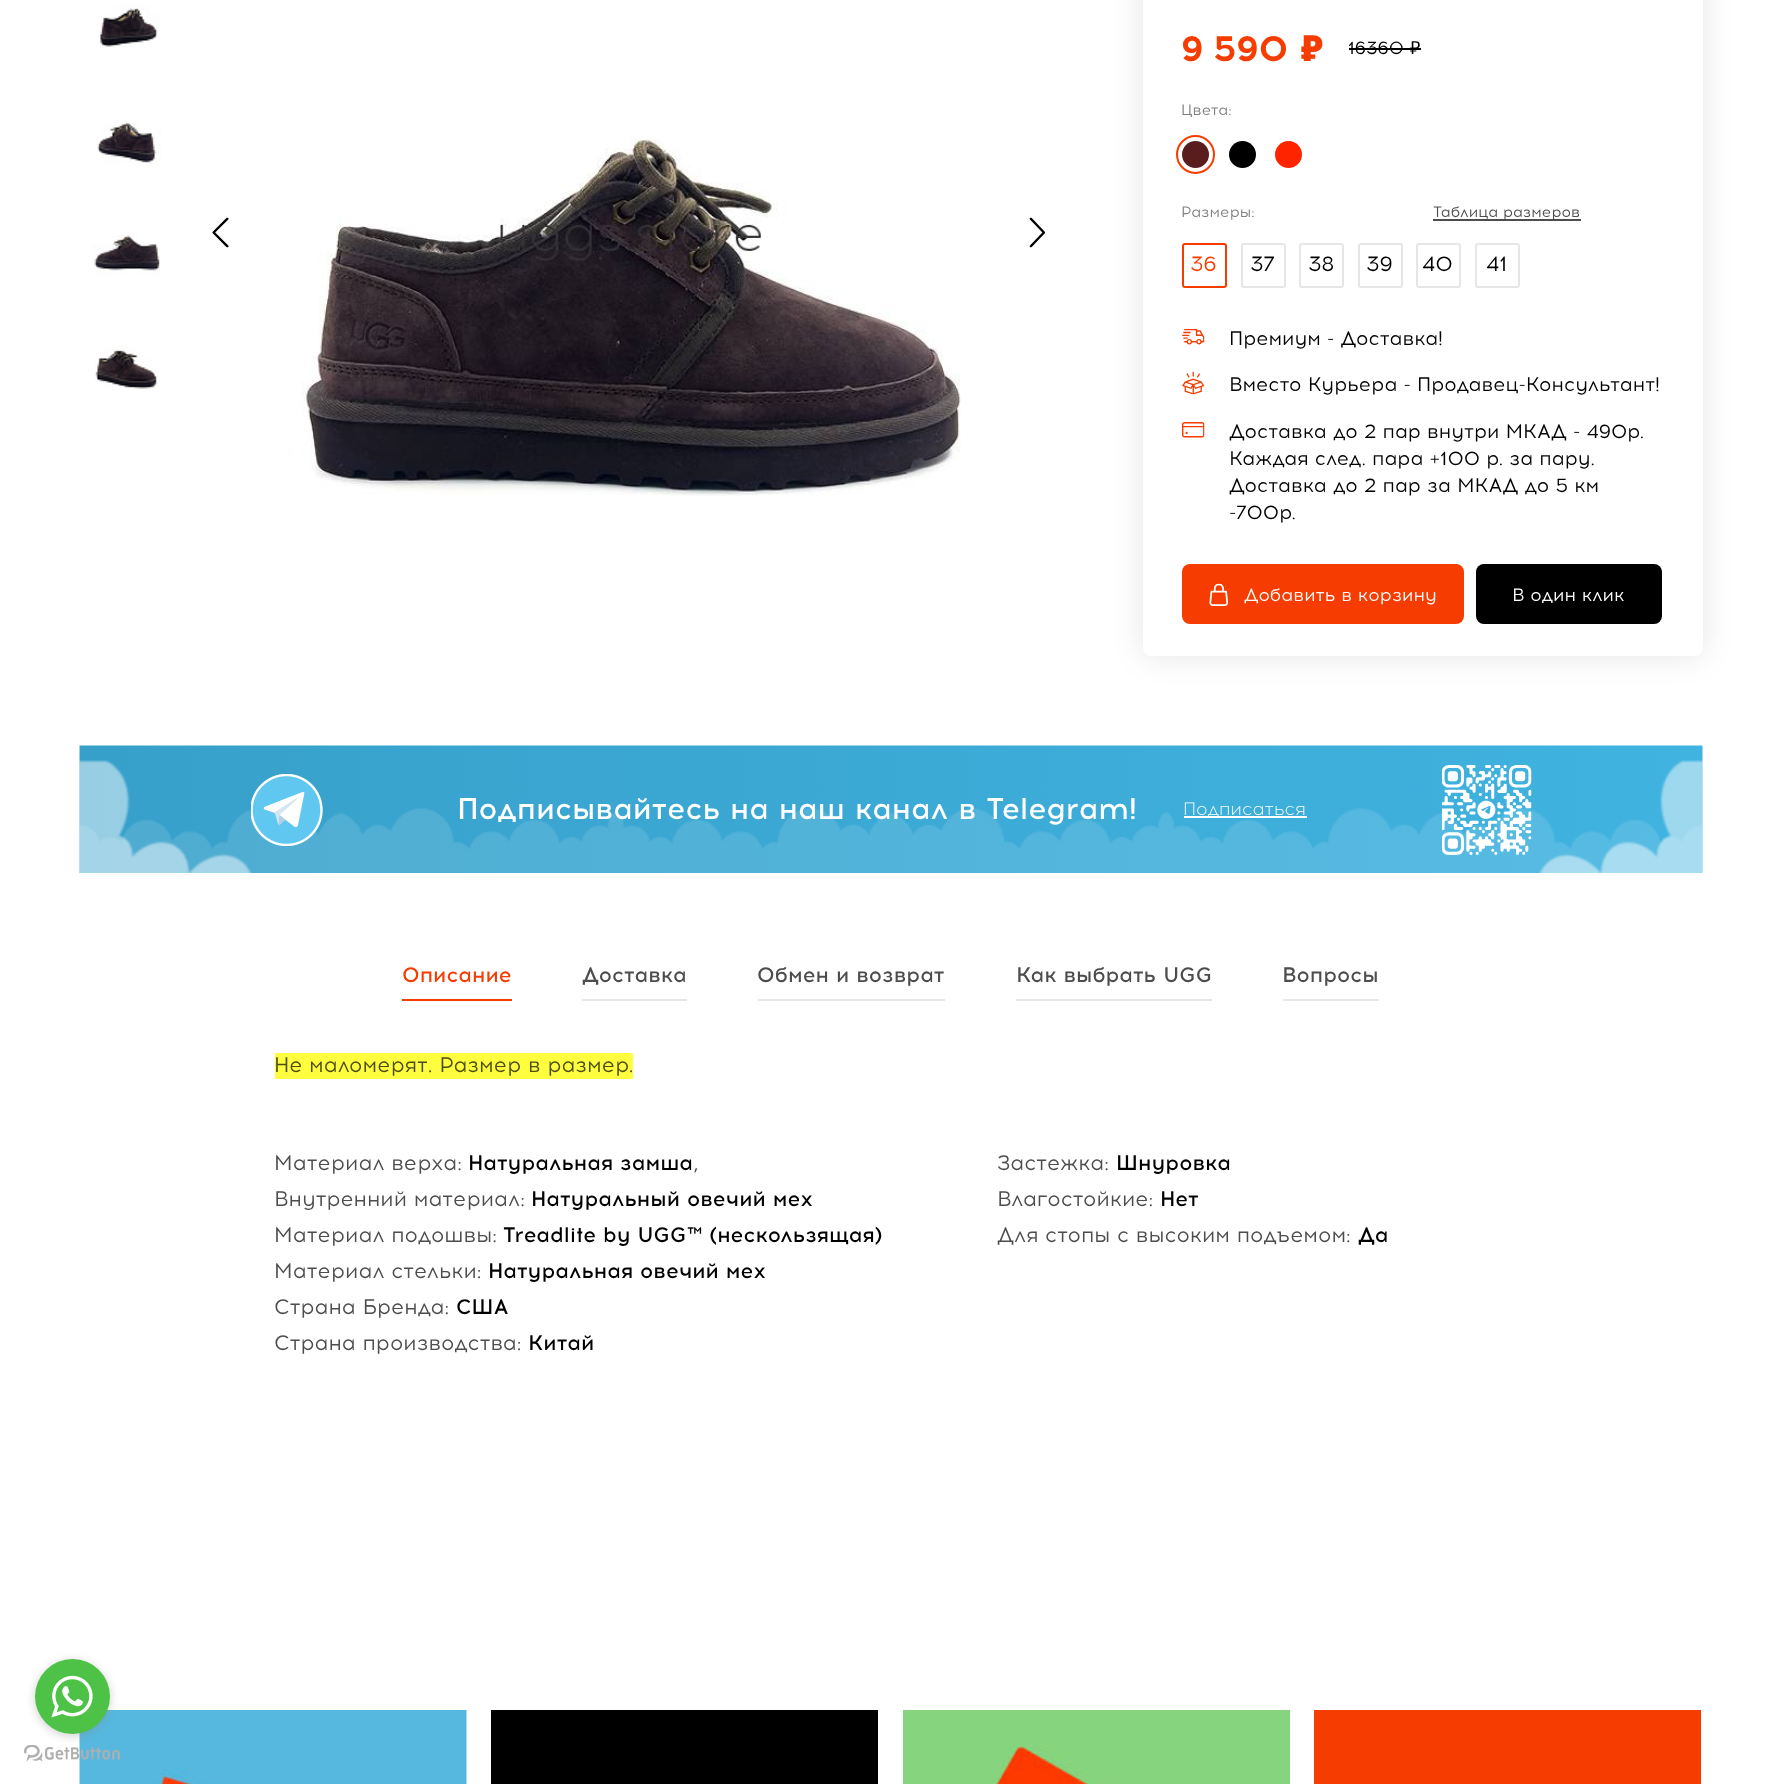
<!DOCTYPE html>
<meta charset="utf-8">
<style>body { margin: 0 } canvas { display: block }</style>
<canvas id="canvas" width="1780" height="1784"></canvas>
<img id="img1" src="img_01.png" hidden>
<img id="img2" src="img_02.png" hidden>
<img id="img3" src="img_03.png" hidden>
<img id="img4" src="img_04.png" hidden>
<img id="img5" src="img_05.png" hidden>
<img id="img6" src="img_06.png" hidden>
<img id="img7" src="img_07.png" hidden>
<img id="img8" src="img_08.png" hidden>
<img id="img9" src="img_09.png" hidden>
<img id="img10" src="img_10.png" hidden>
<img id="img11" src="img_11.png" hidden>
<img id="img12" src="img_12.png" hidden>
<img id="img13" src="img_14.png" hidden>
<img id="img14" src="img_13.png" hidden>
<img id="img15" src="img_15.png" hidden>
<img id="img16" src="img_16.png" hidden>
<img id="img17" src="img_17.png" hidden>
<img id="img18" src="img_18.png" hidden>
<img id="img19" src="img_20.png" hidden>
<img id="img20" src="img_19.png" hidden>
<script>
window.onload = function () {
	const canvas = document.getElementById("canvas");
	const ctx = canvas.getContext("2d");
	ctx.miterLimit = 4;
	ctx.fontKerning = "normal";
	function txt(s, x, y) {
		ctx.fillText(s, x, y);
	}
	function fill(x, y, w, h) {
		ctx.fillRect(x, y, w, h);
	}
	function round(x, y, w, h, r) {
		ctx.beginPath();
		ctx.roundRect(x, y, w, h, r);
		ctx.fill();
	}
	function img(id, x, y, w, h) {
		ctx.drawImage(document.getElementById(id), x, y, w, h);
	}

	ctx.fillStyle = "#FFFFFF";
	fill(0, 0, 1780, 1784);
	img("img1", 99, 4, 61, 44);
	img("img2", 96, 122, 66, 42);
	img("img3", 92, 233, 68, 43);
	img("img4", 95, 346, 63, 44);
	img("img5", 212, 217, 17, 31);
	img("img6", 301, 138, 660, 358);
	img("img7", 1029, 217, 17, 31);
	ctx.fillStyle = "rgba(0, 0, 0, 0.1)";
	ctx.filter = "blur(15px)";
	ctx.beginPath();
	ctx.roundRect(1143, -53, 560, 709, 8);
	ctx.fill();
	ctx.filter = "none";
	ctx.fillStyle = "#FFFFFF";
	round(1143, -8, 560, 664, 8);
	ctx.fillStyle = "#000000";
	fill(1349, 48, 72, 2);
	ctx.fillStyle = "#591D1D";
	ctx.beginPath();
	ctx.arc(1195.5, 154.5, 13.5, 0, Math.PI * 2);
	ctx.fill();
	ctx.beginPath();
	ctx.arc(1195.5, 154.5, 18.5, 0, Math.PI * 2);
	ctx.strokeStyle = "#F63C00";
	ctx.lineWidth = 2;
	ctx.stroke();
	ctx.fillStyle = "#000000";
	ctx.beginPath();
	ctx.arc(1242.5, 154.5, 13.5, 0, Math.PI * 2);
	ctx.fill();
	ctx.fillStyle = "#FF2400";
	ctx.beginPath();
	ctx.arc(1288.5, 154.5, 13.5, 0, Math.PI * 2);
	ctx.fill();
	ctx.fillStyle = "#4D4D4D";
	fill(1433, 219, 148, 2);
	ctx.beginPath();
	ctx.roundRect(1183, 244, 43, 43, 2);
	ctx.stroke();
	ctx.beginPath();
	ctx.roundRect(1242, 244, 43, 43, 2);
	ctx.strokeStyle = "#E6E6E6";
	ctx.stroke();
	ctx.beginPath();
	ctx.roundRect(1300, 244, 43, 43, 2);
	ctx.stroke();
	ctx.beginPath();
	ctx.roundRect(1359, 244, 43, 43, 2);
	ctx.stroke();
	ctx.beginPath();
	ctx.roundRect(1417, 244, 43, 43, 2);
	ctx.stroke();
	ctx.beginPath();
	ctx.roundRect(1476, 244, 43, 43, 2);
	ctx.stroke();
	img("img8", 1182, 329, 23, 16);
	img("img9", 1182, 372, 23, 23);
	img("img10", 1182, 422, 23, 16);
	ctx.fillStyle = "#F63C00";
	round(1182, 564, 282, 60, 8);
	img("img11", 1209, 583, 19, 23);
	ctx.fillStyle = "#000000";
	round(1476, 564, 186, 60, 8);
	img("img12", 79, 745, 1624, 128);
	img("img13", 251, 774, 72, 72);
	img("img14", 79, 760, 173, 113);
	ctx.fillStyle = "#FFFFFF";
	fill(1184, 816, 123, 2);
	img("img15", 1442, 765, 90, 90);
	img("img16", 1539, 760, 164, 113);
	ctx.fillStyle = "#F63C00";
	fill(402, 999, 110, 2);
	ctx.fillStyle = "#E6E6E6";
	fill(582, 999, 105, 2);
	fill(758, 999, 187, 2);
	fill(1016, 999, 196, 2);
	fill(1283, 999, 96, 2);
	ctx.fillStyle = "#FFFF40";
	fill(275, 1053, 358, 26);
	img("img17", 79, 1710, 388, 74);
	ctx.fillStyle = "#000000";
	fill(491, 1710, 387, 74);
	img("img18", 903, 1710, 387, 74);
	ctx.fillStyle = "#F63C00";
	fill(1314, 1710, 387, 74);
	img("img19", 24, 1745, 96, 16);
	ctx.fillStyle = "rgba(136, 136, 136, 0.4)";
	ctx.filter = "blur(5px)";
	ctx.beginPath();
	ctx.roundRect(35, 1661, 75, 75, 37.5);
	ctx.fill();
	ctx.filter = "none";
	ctx.fillStyle = "#4DC247";
	ctx.beginPath();
	ctx.arc(72.5, 1696.5, 37.5, 0, Math.PI * 2);
	ctx.fill();
	img("img20", 51, 1675, 42, 43);
	ctx.font = "bold 36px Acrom";
	ctx.fillStyle = "#F63C00";
	txt("9", 1181, 61);
	txt("590", 1213, 61);
	ctx.font = "900 36px Noto Sans";
	txt("₽", 1301, 61);
	ctx.font = "18px Acrom";
	ctx.fillStyle = "#000000";
	txt("16360", 1348, 54);
	ctx.font = "18px Noto Sans";
	txt("₽", 1410, 54);
	ctx.font = "15px Acrom";
	ctx.fillStyle = "#808080";
	txt("Цвета:", 1181, 115);
	txt("Размеры:", 1181, 217);
	ctx.fillStyle = "#4D4D4D";
	txt("Таблица размеров", 1433, 217);
	ctx.font = "21px Acrom";
	ctx.fillStyle = "#F63C00";
	txt("36", 1190, 271);
	ctx.fillStyle = "#000000";
	txt("37", 1250, 271);
	txt("38", 1308, 271);
	txt("39", 1366, 271);
	txt("40", 1422, 271);
	txt("41", 1486, 271);
	ctx.font = "19.5px Acrom";
	txt("Премиум - Доставка!", 1229, 345);
	txt("Вместо Курьера - Продавец-Консультант!", 1229, 391);
	txt("Доставка до 2 пар внутри МКАД - 490р.", 1229, 438);
	txt("Каждая след. пара +100 р. за пару.", 1229, 465);
	txt("Доставка до 2 пар за МКАД до 5 км", 1229, 492);
	txt("-700р.", 1229, 519);
	ctx.font = "18px Acrom";
	ctx.fillStyle = "#FFFFFF";
	txt("Добавить в корзину", 1244, 601);
	txt("В один клик", 1512, 601);
	ctx.font = "500 30px Acrom";
	txt("Подписывайтесь на наш канал в Telegram!", 457, 819);
	ctx.font = "300 18px Acrom";
	txt("Подписаться", 1183, 815);
	ctx.font = "500 21px Acrom";
	ctx.fillStyle = "#F63C00";
	txt("Описание", 402, 982);
	ctx.fillStyle = "#4D4D4D";
	txt("Доставка", 582, 982);
	txt("Обмен и возврат", 757, 982);
	txt("Как выбрать UGG", 1016, 982);
	txt("Вопросы", 1282, 982);
	ctx.font = "21px Acrom";
	ctx.fillStyle = "#4D4D13";
	txt("Не маломерят. Размер в размер.", 274, 1072);
	ctx.fillStyle = "#4D4D4D";
	txt("Материал верха:", 274, 1170);
	ctx.font = "500 21px Acrom";
	ctx.fillStyle = "#000000";
	txt("Натуральная замша", 468, 1170);
	ctx.font = "21px Acrom";
	ctx.fillStyle = "#4D4D4D";
	txt(",", 693, 1170);
	txt("Внутренний материал:", 274, 1206);
	ctx.font = "500 21px Acrom";
	ctx.fillStyle = "#000000";
	txt("Натуральный овечий мех", 531, 1206);
	ctx.font = "21px Acrom";
	ctx.fillStyle = "#4D4D4D";
	txt("Материал подошвы:", 274, 1242);
	ctx.font = "500 21px Acrom";
	ctx.fillStyle = "#000000";
	txt("Treadlite by UGG™ (нескользящая)", 503, 1242);
	ctx.font = "21px Acrom";
	ctx.fillStyle = "#4D4D4D";
	txt("Материал стельки:", 274, 1278);
	ctx.font = "500 21px Acrom";
	ctx.fillStyle = "#000000";
	txt("Натуральная овечий мех", 488, 1278);
	ctx.font = "21px Acrom";
	ctx.fillStyle = "#4D4D4D";
	txt("Страна Бренда:", 274, 1314);
	ctx.font = "500 21px Acrom";
	ctx.fillStyle = "#000000";
	txt("США", 456, 1314);
	ctx.font = "21px Acrom";
	ctx.fillStyle = "#4D4D4D";
	txt("Страна производства:", 274, 1350);
	ctx.font = "500 21px Acrom";
	ctx.fillStyle = "#000000";
	txt("Китай", 528, 1350);
	ctx.font = "21px Acrom";
	ctx.fillStyle = "#4D4D4D";
	txt("Застежка:", 997, 1170);
	ctx.font = "500 21px Acrom";
	ctx.fillStyle = "#000000";
	txt("Шнуровка", 1116, 1170);
	ctx.font = "21px Acrom";
	ctx.fillStyle = "#4D4D4D";
	txt("Влагостойкие:", 997, 1206);
	ctx.font = "500 21px Acrom";
	ctx.fillStyle = "#000000";
	txt("Нет", 1160, 1206);
	ctx.font = "21px Acrom";
	ctx.fillStyle = "#4D4D4D";
	txt("Для стопы с высоким подъемом:", 997, 1242);
	ctx.font = "500 21px Acrom";
	ctx.fillStyle = "#000000";
	txt("Да", 1358, 1242);
};
</script>
